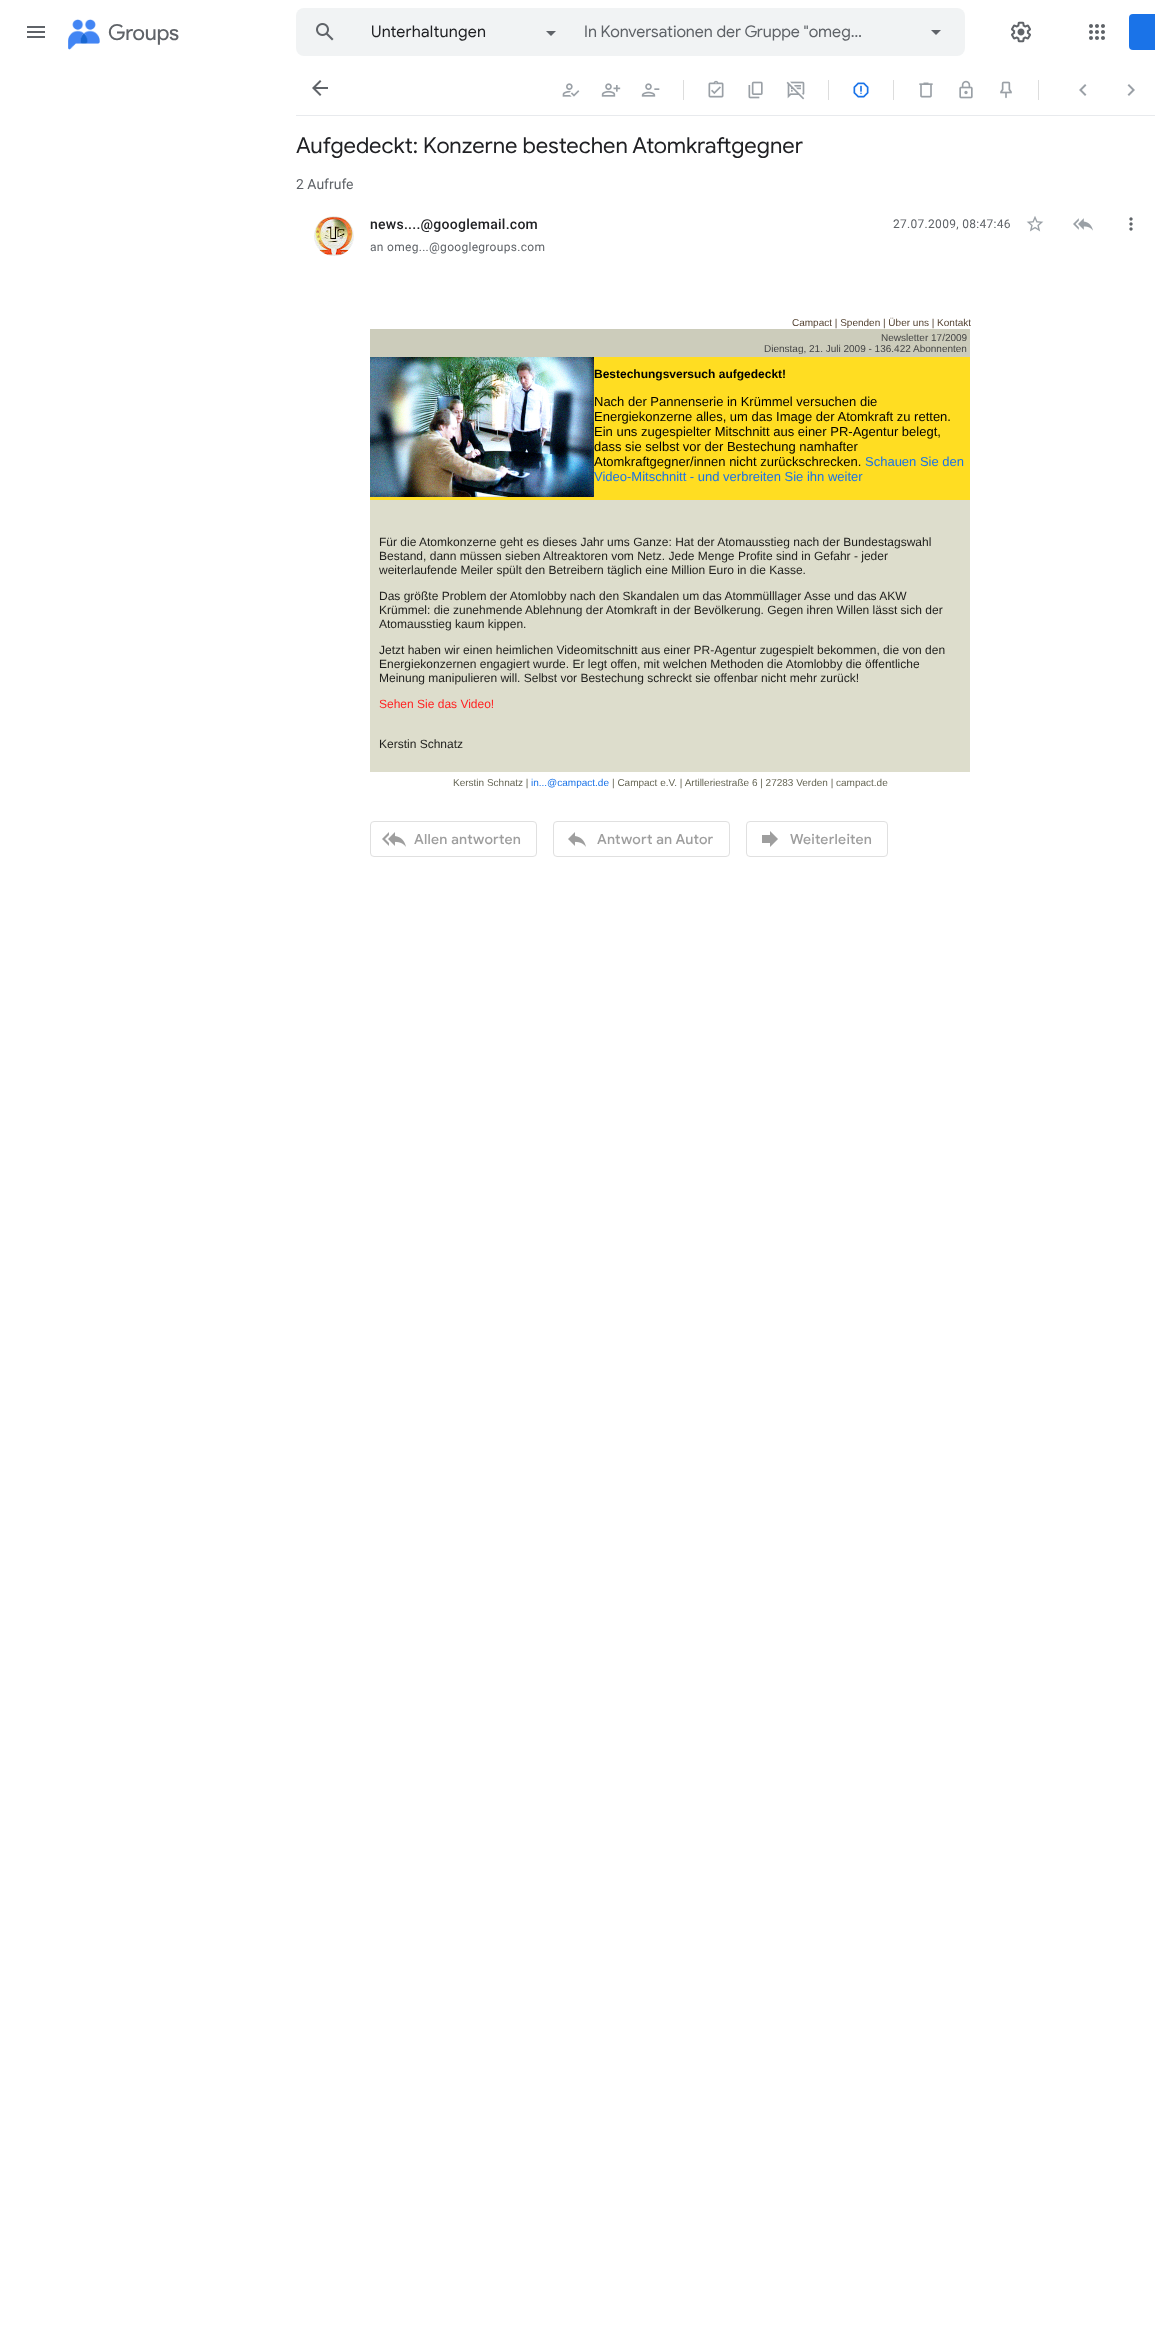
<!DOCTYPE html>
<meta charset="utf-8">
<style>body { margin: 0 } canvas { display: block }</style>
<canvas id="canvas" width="1155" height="2348"></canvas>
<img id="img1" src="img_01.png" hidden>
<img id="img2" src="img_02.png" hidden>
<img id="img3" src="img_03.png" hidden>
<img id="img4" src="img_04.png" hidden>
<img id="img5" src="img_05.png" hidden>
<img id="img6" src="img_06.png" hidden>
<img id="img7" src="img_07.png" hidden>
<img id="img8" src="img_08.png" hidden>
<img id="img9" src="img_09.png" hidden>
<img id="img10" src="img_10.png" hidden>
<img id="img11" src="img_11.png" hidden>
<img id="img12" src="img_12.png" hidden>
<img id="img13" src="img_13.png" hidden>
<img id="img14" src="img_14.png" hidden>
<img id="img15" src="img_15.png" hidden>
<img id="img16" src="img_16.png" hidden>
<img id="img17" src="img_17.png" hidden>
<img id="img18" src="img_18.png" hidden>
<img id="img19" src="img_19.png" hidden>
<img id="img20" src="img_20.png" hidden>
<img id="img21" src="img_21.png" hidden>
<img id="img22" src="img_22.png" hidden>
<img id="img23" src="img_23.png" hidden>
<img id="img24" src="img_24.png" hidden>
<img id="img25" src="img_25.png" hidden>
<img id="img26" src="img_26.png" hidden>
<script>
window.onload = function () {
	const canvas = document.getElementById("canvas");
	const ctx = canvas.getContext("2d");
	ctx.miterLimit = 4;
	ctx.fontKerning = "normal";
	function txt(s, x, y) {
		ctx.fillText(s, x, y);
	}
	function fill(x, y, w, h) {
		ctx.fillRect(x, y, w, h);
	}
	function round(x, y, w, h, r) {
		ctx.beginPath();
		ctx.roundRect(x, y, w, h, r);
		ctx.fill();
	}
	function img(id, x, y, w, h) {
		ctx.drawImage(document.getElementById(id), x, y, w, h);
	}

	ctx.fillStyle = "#FFFFFF";
	fill(0, 0, 1155, 2348);
	img("img1", 27, 26, 18, 12);
	img("img2", 68, 19, 32, 31);
	ctx.fillStyle = "#F1F3F4";
	round(296, 8, 669, 48, 8);
	img("img3", 316, 23, 18, 18);
	ctx.fillStyle = "#5F6368";
	ctx.beginPath();
	ctx.moveTo(546, 31);
	ctx.lineTo(556, 31);
	ctx.lineTo(551, 36);
	ctx.closePath();
	ctx.fill();
	ctx.beginPath();
	ctx.moveTo(931, 30);
	ctx.lineTo(936, 35);
	ctx.lineTo(941, 30);
	ctx.closePath();
	ctx.fill();
	img("img4", 1011, 21, 20, 22);
	img("img5", 1089, 24, 16, 16);
	ctx.fillStyle = "#1A73E8";
	round(1129, 14, 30, 36, 4);
	ctx.fillStyle = "#E8EAED";
	fill(296, 115, 859, 1);
	img("img6", 312, 80, 16, 16);
	img("img7", 562, 83, 18, 14);
	img("img8", 601, 83, 20, 14);
	img("img9", 641, 83, 19, 14);
	ctx.fillStyle = "#DDDDDD";
	fill(683, 80, 1, 20);
	img("img10", 708, 80, 16, 18);
	img("img11", 748, 81, 15, 18);
	img("img12", 786, 81, 19, 19);
	fill(828, 80, 1, 20);
	img("img13", 853, 82, 16, 16);
	fill(893, 80, 1, 20);
	img("img14", 919, 82, 14, 16);
	img("img15", 959, 80, 14, 19);
	img("img16", 1000, 81, 12, 18);
	fill(1038, 80, 1, 20);
	img("img17", 1079, 84, 8, 12);
	img("img18", 1127, 84, 8, 12);
	img("img19", 314, 216, 40, 40);
	img("img20", 1026, 216, 18, 16);
	img("img21", 1073, 218, 20, 13);
	img("img22", 1129, 217, 4, 14);
	ctx.fillStyle = "#CCCCBB";
	fill(370, 329, 600, 28);
	ctx.fillStyle = "#FFDD22";
	fill(370, 357, 600, 143);
	img("img23", 370, 357, 224, 140);
	ctx.fillStyle = "#DDDDCC";
	fill(370, 500, 600, 272);
	ctx.beginPath();
	ctx.roundRect(370.5, 821.5, 166, 35, 3.5);
	ctx.strokeStyle = "#E0E0E0";
	ctx.stroke();
	img("img24", 382, 832, 24, 15);
	ctx.beginPath();
	ctx.roundRect(553.5, 821.5, 176, 35, 3.5);
	ctx.stroke();
	img("img25", 568, 832, 18, 15);
	ctx.beginPath();
	ctx.roundRect(746.5, 821.5, 141, 35, 3.5);
	ctx.stroke();
	img("img26", 762, 831, 16, 16);
	ctx.font = "22px Product Sans";
	ctx.fillStyle = "#5F6368";
	txt("Groups", 108, 40);
	ctx.letterSpacing = "0.25px";
	ctx.font = "16px Google Sans";
	ctx.fillStyle = "#202124";
	txt("Unterhaltungen", 371, 37);
	ctx.letterSpacing = "0px";
	ctx.fillStyle = "#5F6368";
	txt("In Konversationen der Gruppe \"omeg…", 584, 37);
	ctx.font = "22px Google Sans";
	ctx.fillStyle = "#202124";
	txt("Aufgedeckt: Konzerne bestechen Atomkraftgegner", 296, 153);
	ctx.font = "14px Roboto";
	ctx.fillStyle = "#5F6368";
	txt("2 Aufrufe", 296, 189);
	ctx.letterSpacing = "0.25px";
	ctx.font = "500 14px Roboto";
	ctx.fillStyle = "#202124";
	txt("news....@googlemail.com", 370, 229);
	ctx.letterSpacing = "0.3px";
	ctx.font = "12px Roboto";
	ctx.fillStyle = "#5F6368";
	txt("27.07.2009, 08:47:46", 893, 228);
	txt("an omeg...@googlegroups.com", 370, 251);
	ctx.letterSpacing = "0px";
	ctx.font = "10px Liberation Sans";
	ctx.fillStyle = "#554433";
	txt("Campact | Spenden | Über uns | Kontakt", 792, 326);
	ctx.fillStyle = "#444444";
	txt("Newsletter 17/2009", 881, 341);
	txt("Dienstag, 21. Juli 2009 - 136.422 Abonnenten", 764, 352);
	ctx.font = "bold 12px Liberation Sans";
	ctx.fillStyle = "#000000";
	txt("Bestechungsversuch aufgedeckt!", 594, 378);
	ctx.font = "13px Liberation Sans";
	txt("Nach der Pannenserie in Krümmel versuchen die", 594, 406);
	txt("Energiekonzerne alles, um das Image der Atomkraft zu retten.", 594, 421);
	txt("Ein uns zugespielter Mitschnitt aus einer PR-Agentur belegt,", 594, 436);
	txt("dass sie selbst vor der Bestechung namhafter", 594, 451);
	txt("Atomkraftgegner/innen nicht zurückschrecken.", 594, 466);
	ctx.fillStyle = "#1A73E8";
	txt("Schauen Sie den", 865, 466);
	txt("Video-Mitschnitt - und verbreiten Sie ihn weiter", 594, 481);
	ctx.font = "12px Liberation Sans";
	ctx.fillStyle = "#1D1D1B";
	txt("Für die Atomkonzerne geht es dieses Jahr ums Ganze: Hat der Atomausstieg nach der Bundestagswahl", 379, 546);
	txt("Bestand, dann müssen sieben Altreaktoren vom Netz. Jede Menge Profite sind in Gefahr - jeder", 379, 560);
	txt("weiterlaufende Meiler spült den Betreibern täglich eine Million Euro in die Kasse.", 379, 574);
	txt("Das größte Problem der Atomlobby nach den Skandalen um das Atommülllager Asse und das AKW", 379, 600);
	txt("Krümmel: die zunehmende Ablehnung der Atomkraft in der Bevölkerung. Gegen ihren Willen lässt sich der", 379, 614);
	txt("Atomausstieg kaum kippen.", 379, 628);
	txt("Jetzt haben wir einen heimlichen Videomitschnitt aus einer PR-Agentur zugespielt bekommen, die von den", 379, 654);
	txt("Energiekonzernen engagiert wurde. Er legt offen, mit welchen Methoden die Atomlobby die öffentliche", 379, 668);
	txt("Meinung manipulieren will. Selbst vor Bestechung schreckt sie offenbar nicht mehr zurück!", 379, 682);
	ctx.fillStyle = "#FF2222";
	txt("Sehen Sie das Video!", 379, 708);
	ctx.fillStyle = "#1D1D1B";
	txt("Kerstin Schnatz", 379, 748);
	ctx.font = "10px Liberation Sans";
	ctx.fillStyle = "#666655";
	txt("Kerstin Schnatz |", 453, 786);
	ctx.fillStyle = "#1A73E8";
	txt("in...@campact.de", 531, 786);
	ctx.fillStyle = "#666655";
	txt("| Campact e.V. | Artilleriestraße 6 | 27283 Verden | campact.de", 612, 786);
	ctx.letterSpacing = "0.25px";
	ctx.font = "500 14px Google Sans";
	ctx.fillStyle = "#9E9E9E";
	txt("Allen antworten", 414, 844);
	txt("Antwort an Autor", 597, 844);
	txt("Weiterleiten", 790, 844);
};
</script>
